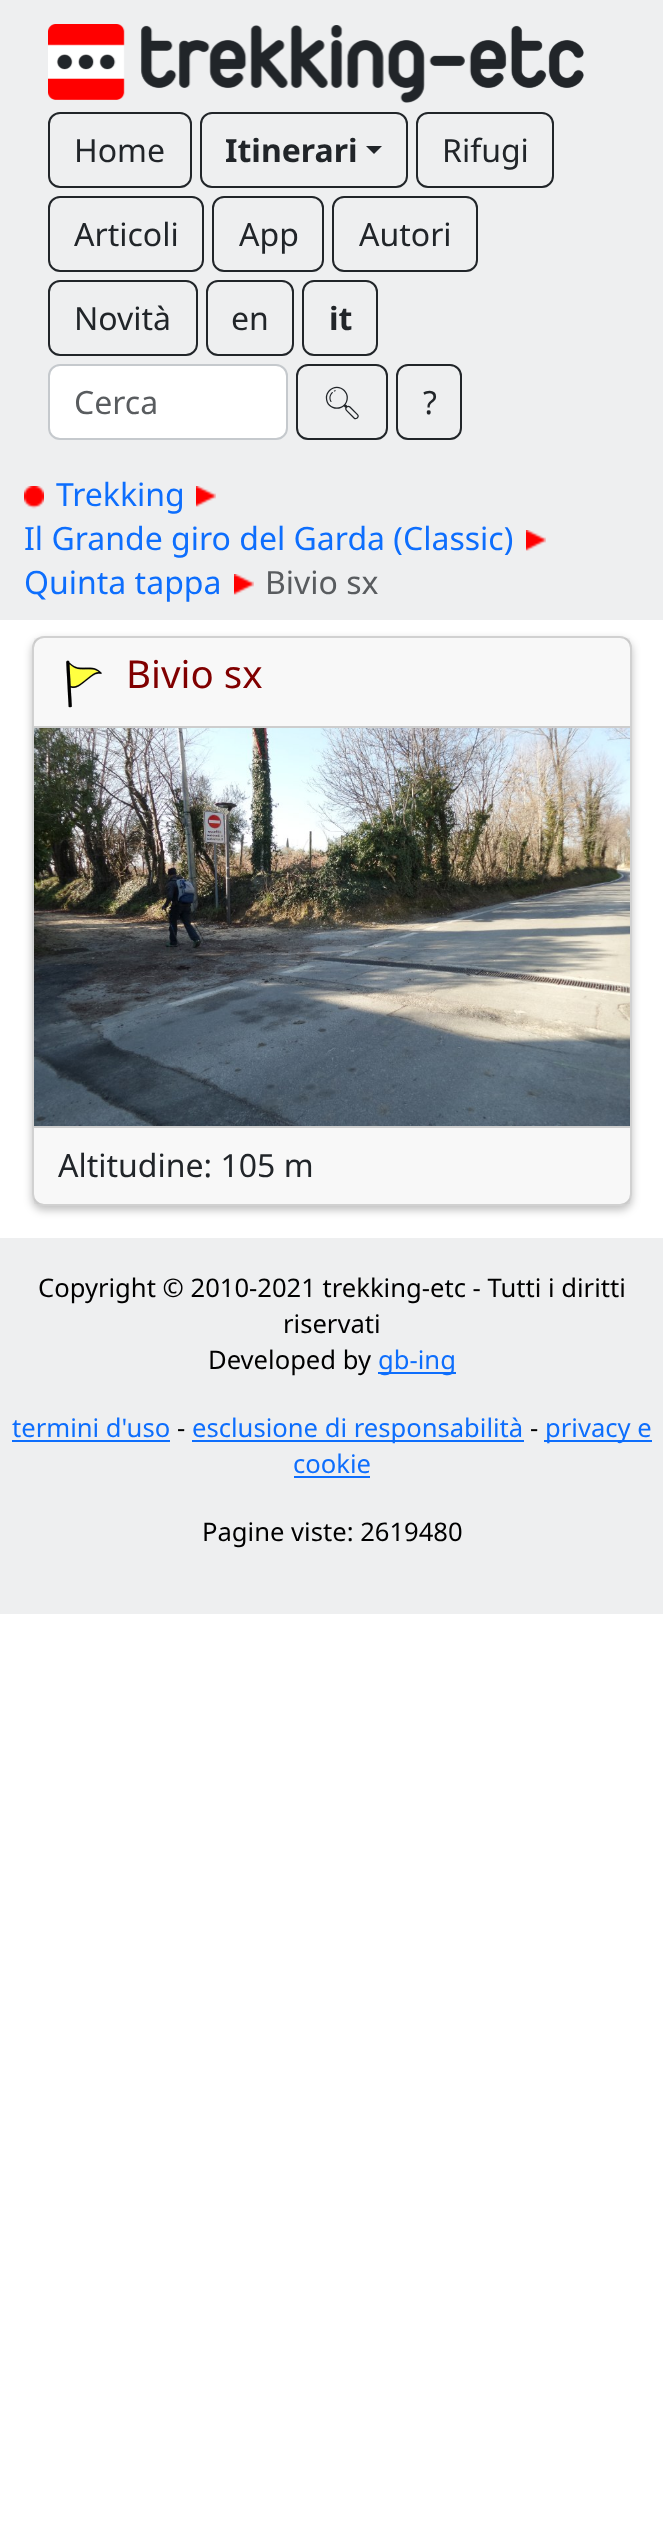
<!DOCTYPE html>
<meta charset="utf-8">
<style>body { margin: 0 } canvas { display: block }</style>
<canvas id="canvas" width="663" height="2521"></canvas>
<img id="img1" src="img_01.png" hidden>
<img id="img2" src="img_02.png" hidden>
<img id="img3" src="img_03.png" hidden>
<img id="img4" src="img_04.png" hidden>
<img id="img5" src="img_05.png" hidden>
<script>
window.onload = function () {
	const canvas = document.getElementById("canvas");
	const ctx = canvas.getContext("2d");
	ctx.miterLimit = 4;
	ctx.fontKerning = "normal";
	function txt(s, x, y) {
		ctx.fillText(s, x, y);
	}
	function fill(x, y, w, h) {
		ctx.fillRect(x, y, w, h);
	}
	function round(x, y, w, h, r) {
		ctx.beginPath();
		ctx.roundRect(x, y, w, h, r);
		ctx.fill();
	}
	function img(id, x, y, w, h) {
		ctx.drawImage(document.getElementById(id), x, y, w, h);
	}

	ctx.fillStyle = "#FFFFFF";
	fill(0, 0, 663, 2521);
	ctx.fillStyle = "#EEEFF0";
	fill(0, 0, 663, 620);
	img("img1", 48, 24, 536, 79);
	ctx.beginPath();
	ctx.roundRect(49, 113, 142, 74, 11);
	ctx.strokeStyle = "#212529";
	ctx.lineWidth = 2;
	ctx.stroke();
	ctx.beginPath();
	ctx.roundRect(201, 113, 206, 74, 11);
	ctx.stroke();
	ctx.fillStyle = "#212529";
	ctx.beginPath();
	ctx.moveTo(366, 146);
	ctx.lineTo(382, 146);
	ctx.lineTo(374, 154);
	ctx.closePath();
	ctx.fill();
	ctx.beginPath();
	ctx.roundRect(417, 113, 136, 74, 11);
	ctx.stroke();
	ctx.beginPath();
	ctx.roundRect(49, 197, 154, 74, 11);
	ctx.stroke();
	ctx.beginPath();
	ctx.roundRect(213, 197, 110, 74, 11);
	ctx.stroke();
	ctx.beginPath();
	ctx.roundRect(333, 197, 144, 74, 11);
	ctx.stroke();
	ctx.beginPath();
	ctx.roundRect(49, 281, 148, 74, 11);
	ctx.stroke();
	ctx.beginPath();
	ctx.roundRect(207, 281, 86, 74, 11);
	ctx.stroke();
	ctx.beginPath();
	ctx.roundRect(303, 281, 74, 74, 11);
	ctx.stroke();
	ctx.fillStyle = "#FFFFFF";
	ctx.beginPath();
	ctx.roundRect(49, 365, 238, 74, 11);
	ctx.fill();
	ctx.strokeStyle = "#C5C9CD";
	ctx.stroke();
	ctx.beginPath();
	ctx.roundRect(297, 365, 90, 74, 11);
	ctx.strokeStyle = "#212529";
	ctx.stroke();
	ctx.beginPath();
	ctx.roundRect(397, 365, 64, 74, 11);
	ctx.stroke();
	img("img2", 24, 486, 20, 23);
	img("img3", 196, 486, 20, 21);
	img("img3", 526, 530, 20, 21);
	img("img3", 234, 574, 20, 21);
	ctx.fillStyle = "rgba(0, 0, 0, 0.25)";
	ctx.filter = "blur(4px)";
	ctx.beginPath();
	ctx.roundRect(32, 640, 600, 570, 12);
	ctx.fill();
	ctx.filter = "none";
	ctx.fillStyle = "#FFFFFF";
	round(32, 636, 600, 570, 12);
	ctx.beginPath();
	ctx.roundRect(33, 637, 598, 568, 11);
	ctx.strokeStyle = "rgba(0, 0, 0, 0.18)";
	ctx.stroke();
	ctx.fillStyle = "rgba(33, 37, 41, 0.03)";
	fill(34, 638, 596, 88);
	ctx.fillStyle = "#CDCDCD";
	fill(34, 726, 596, 2);
	img("img4", 66, 660, 36, 48);
	img("img5", 34, 728, 596, 398);
	ctx.fillStyle = "rgba(33, 37, 41, 0.03)";
	fill(34, 1128, 596, 76);
	ctx.fillStyle = "#CDCDCD";
	fill(34, 1126, 596, 2);
	ctx.fillStyle = "#EEEFF0";
	fill(0, 1238, 663, 376);
	ctx.fillStyle = "#0D6EFD";
	fill(378, 1372, 78, 2);
	fill(12, 1440, 158, 2);
	fill(192, 1440, 332, 2);
	fill(544, 1440, 108, 2);
	fill(294, 1476, 76, 2);
	ctx.font = "32px Noto Sans";
	ctx.fillStyle = "#212529";
	txt("Home", 74, 162);
	ctx.font = "bold 32px Noto Sans";
	txt("Itinerari", 225, 162);
	ctx.font = "32px Noto Sans";
	txt("Rifugi", 442, 162);
	txt("Articoli", 74, 246);
	txt("App", 239, 246);
	txt("Autori", 359, 246);
	txt("Novità", 74, 330);
	txt("en", 231, 330);
	ctx.font = "bold 32px Noto Sans";
	txt("it", 329, 330);
	ctx.font = "32px Noto Sans";
	ctx.fillStyle = "#595C5F";
	txt("Cerca", 74, 414);
	ctx.font = "32px Noto Emoji";
	ctx.fillStyle = "#212529";
	txt("🔍︎", 322, 414);
	ctx.font = "32px Noto Sans";
	txt("?", 423, 414);
	ctx.fillStyle = "#0D6EFD";
	txt("Trekking", 56, 506);
	txt("Il Grande giro del Garda (Classic)", 24, 550);
	txt("Quinta tappa", 24, 594);
	ctx.fillStyle = "#595C5F";
	txt("Bivio sx", 265, 594);
	ctx.font = "38.5px Noto Sans";
	ctx.fillStyle = "#800000";
	txt("Bivio sx", 126, 688);
	ctx.font = "32px Noto Sans";
	ctx.fillStyle = "#212529";
	txt("Altitudine: 105 m", 58, 1177);
	ctx.font = "25.6px Noto Sans";
	ctx.fillStyle = "#000000";
	txt("Copyright © 2010-2021 trekking-etc - Tutti i diritti", 38, 1297);
	txt("riservati", 283, 1333);
	txt("Developed by", 208, 1369);
	ctx.fillStyle = "#0D6EFD";
	txt("gb-ing", 378, 1369);
	txt("termini d'uso", 12, 1437);
	ctx.fillStyle = "#000000";
	txt("-", 177, 1437);
	ctx.fillStyle = "#0D6EFD";
	txt("esclusione di responsabilità", 192, 1437);
	ctx.fillStyle = "#000000";
	txt("-", 530, 1437);
	ctx.fillStyle = "#0D6EFD";
	txt("privacy e", 545, 1437);
	txt("cookie", 293, 1473);
	ctx.fillStyle = "#000000";
	txt("Pagine viste: 2619480", 202, 1541);
};
</script>
